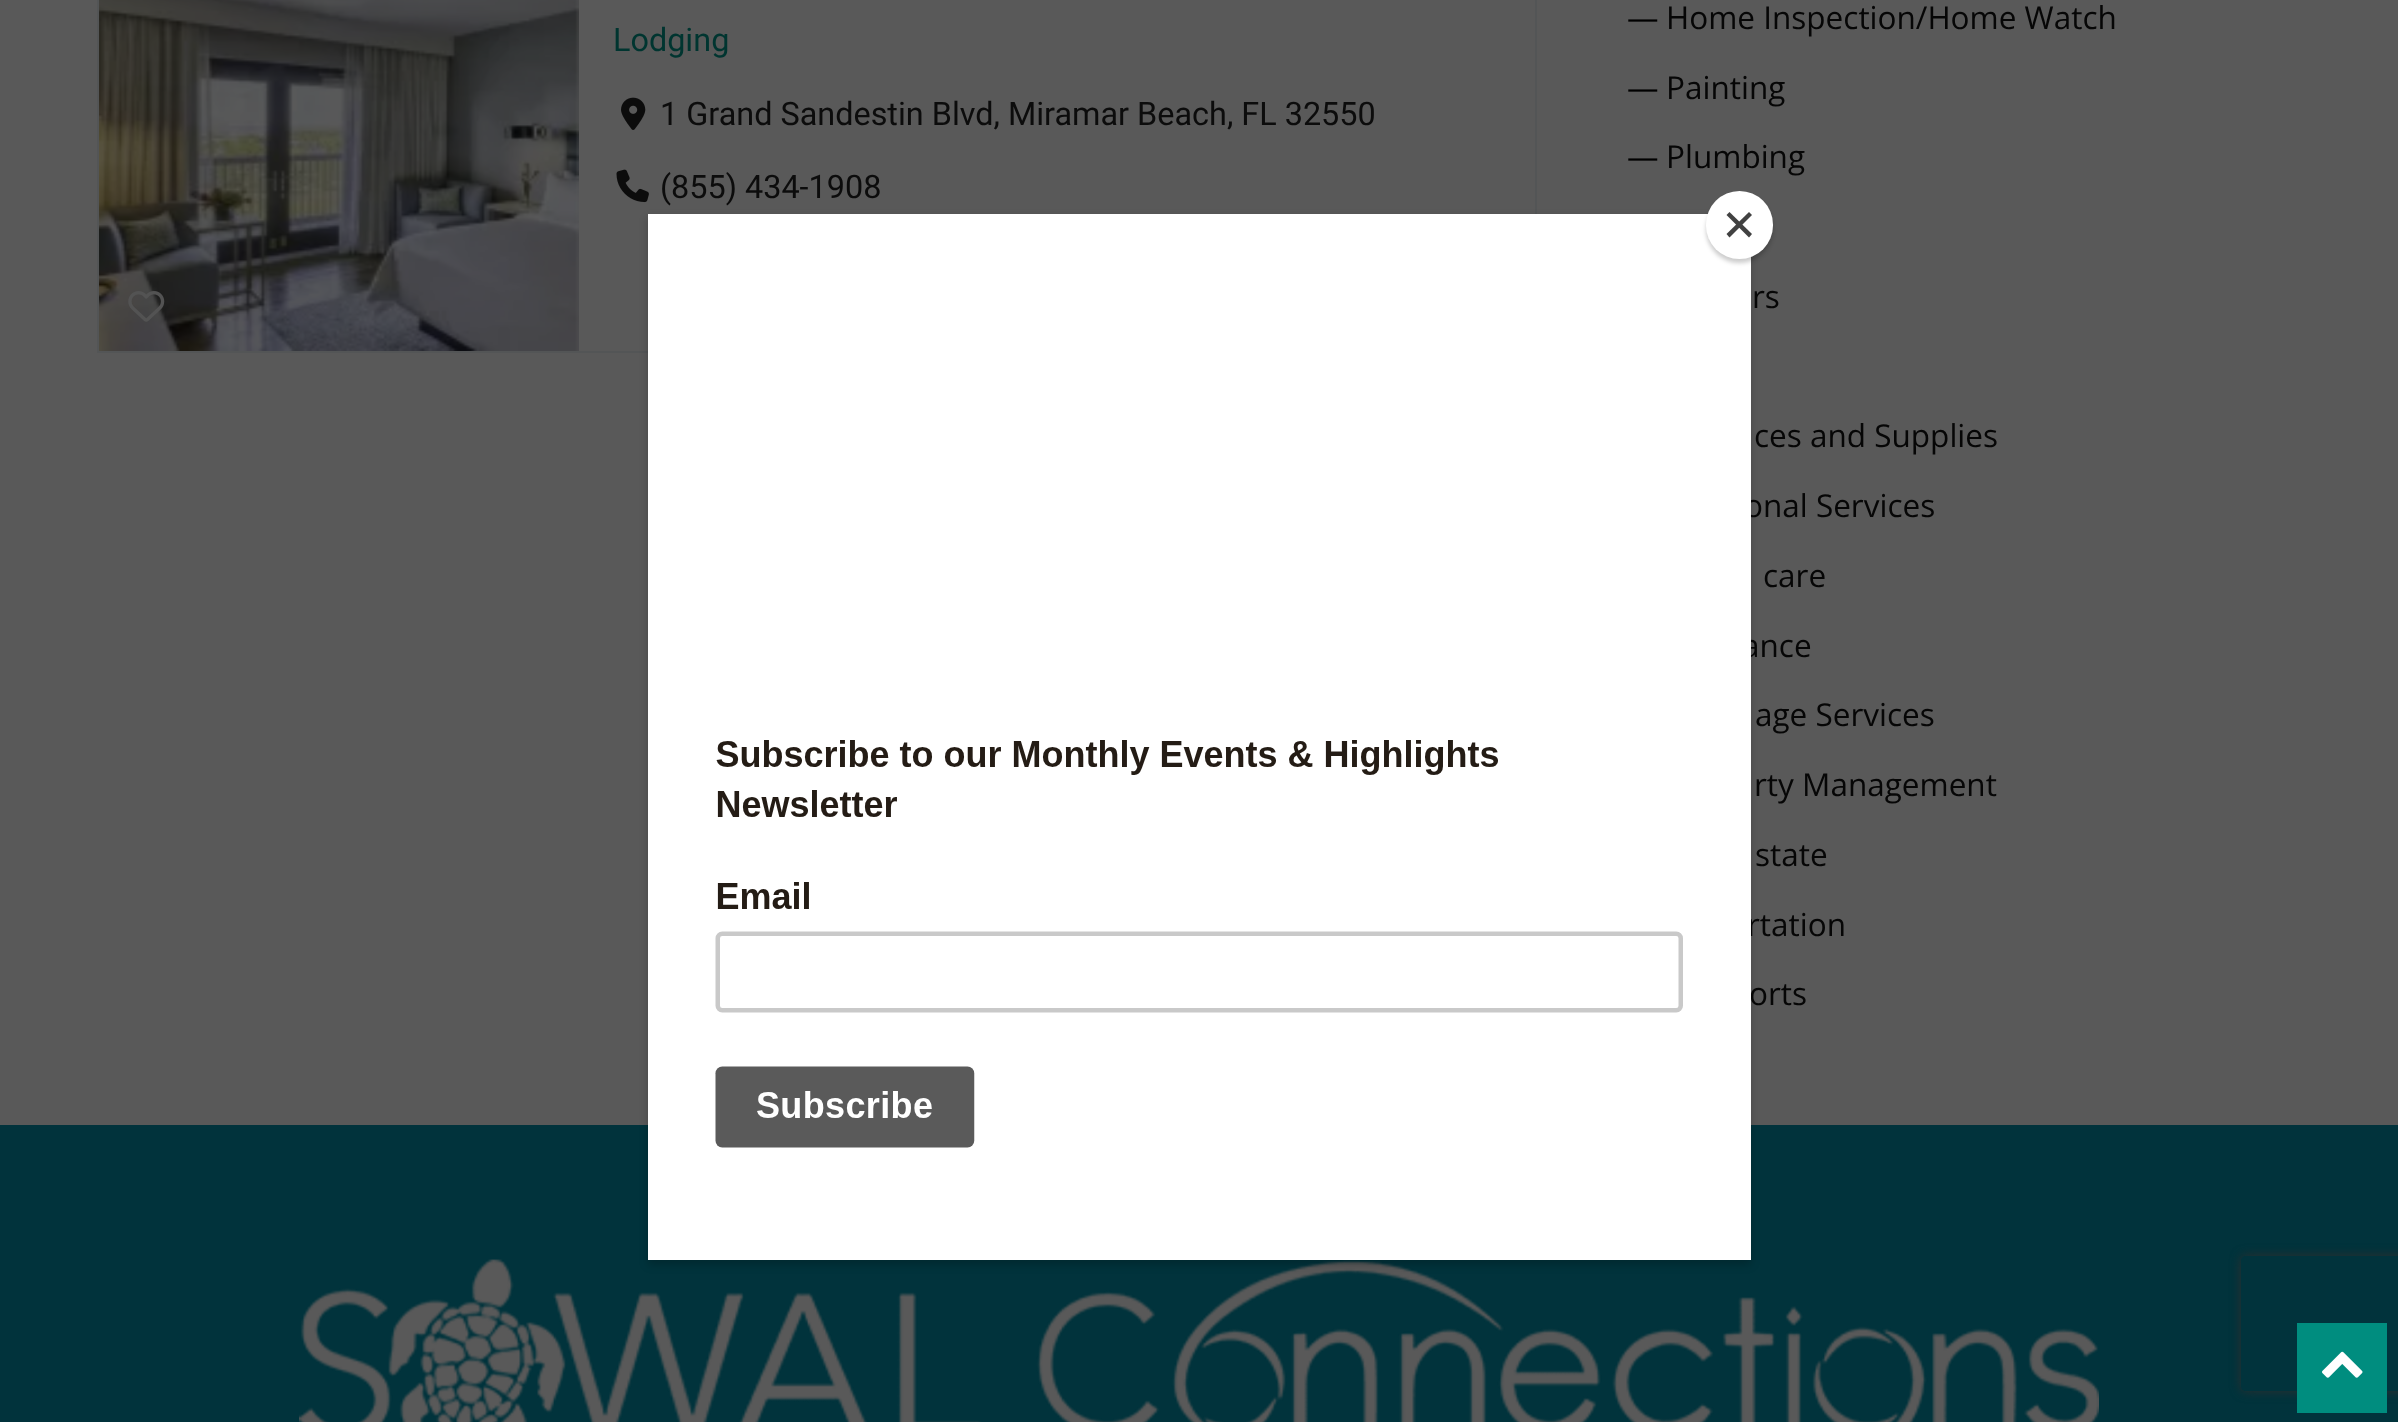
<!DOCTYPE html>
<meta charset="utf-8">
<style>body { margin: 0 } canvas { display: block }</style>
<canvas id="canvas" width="2398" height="1422"></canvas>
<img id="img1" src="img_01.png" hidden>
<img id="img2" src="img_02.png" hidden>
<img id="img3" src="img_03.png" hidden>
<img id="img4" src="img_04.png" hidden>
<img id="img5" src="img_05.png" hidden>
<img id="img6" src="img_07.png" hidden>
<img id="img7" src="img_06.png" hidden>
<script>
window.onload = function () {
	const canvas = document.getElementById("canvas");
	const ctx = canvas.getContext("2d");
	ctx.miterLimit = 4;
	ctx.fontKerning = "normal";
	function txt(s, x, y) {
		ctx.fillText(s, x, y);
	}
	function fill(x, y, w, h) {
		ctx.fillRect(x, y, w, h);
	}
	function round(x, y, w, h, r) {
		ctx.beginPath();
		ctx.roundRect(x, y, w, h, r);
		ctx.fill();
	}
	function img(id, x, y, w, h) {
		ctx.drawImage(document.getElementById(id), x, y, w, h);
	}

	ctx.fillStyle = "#595959";
	fill(0, 0, 2398, 1422);
	ctx.strokeStyle = "#535556";
	ctx.lineWidth = 2;
	ctx.strokeRect(98, -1, 1438, 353);
	img("img1", 99, 0, 480, 351);
	img("img2", 128, 291, 37, 31);
	img("img3", 621, 97, 25, 33);
	img("img4", 616, 169, 33, 34);
	ctx.fillStyle = "#01333C";
	fill(0, 1125, 2398, 297);
	img("img5", 299, 1259, 1800, 163);
	ctx.fillStyle = "rgba(0, 0, 0, 0.2)";
	ctx.filter = "blur(4.5px)";
	ctx.beginPath();
	ctx.rect(648, 218, 1103, 1047);
	ctx.fill();
	ctx.filter = "none";
	ctx.save();
	ctx.beginPath();
	ctx.moveTo(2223, 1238);
	ctx.lineTo(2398, 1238);
	ctx.lineTo(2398, 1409);
	ctx.lineTo(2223, 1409);
	ctx.closePath();
	ctx.moveTo(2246, 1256);
	ctx.lineTo(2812, 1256);
	ctx.bezierCurveTo(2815, 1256, 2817, 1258, 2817, 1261);
	ctx.lineTo(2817, 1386);
	ctx.bezierCurveTo(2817, 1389, 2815, 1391, 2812, 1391);
	ctx.lineTo(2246, 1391);
	ctx.bezierCurveTo(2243, 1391, 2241, 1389, 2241, 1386);
	ctx.lineTo(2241, 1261);
	ctx.bezierCurveTo(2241, 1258, 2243, 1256, 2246, 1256);
	ctx.closePath();
	ctx.clip("evenodd");
	ctx.fillStyle = "#2D2D2D";
	ctx.filter = "blur(5.5px)";
	ctx.beginPath();
	ctx.roundRect(2241, 1256, 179, 135, 5);
	ctx.fill();
	ctx.filter = "none";
	ctx.restore();
	ctx.fillStyle = "#008D7F";
	fill(2297, 1323, 90, 90);
	img("img6", 2322, 1351, 41, 27);
	ctx.font = "32.4px Roboto";
	ctx.fillStyle = "#003530";
	txt("Lodging", 613, 51);
	ctx.fillStyle = "#0C0C0C";
	txt("1 Grand Sandestin Blvd, Miramar Beach, FL 32550", 660, 125);
	txt("(855) 434-1908", 660, 198);
	ctx.font = "31.5px Open Sans";
	ctx.fillStyle = "#000000";
	txt("—", 1627, 29);
	ctx.fillStyle = "#060606";
	txt("Home Inspection/Home Watch", 1666, 29);
	ctx.fillStyle = "#000000";
	txt("—", 1627, 99);
	ctx.fillStyle = "#060606";
	txt("Painting", 1666, 99);
	ctx.fillStyle = "#000000";
	txt("—", 1627, 168);
	ctx.fillStyle = "#060606";
	txt("Plumbing", 1666, 168);
	txt("rs", 1752, 308);
	txt("ces and Supplies", 1754, 447);
	txt("onal Services", 1744, 517);
	txt("care", 1763, 587);
	txt("ance", 1742, 657);
	txt("age Services", 1755, 726);
	txt("rty Management", 1754, 796);
	txt("state", 1755, 866);
	txt("rtation", 1747, 936);
	txt("orts", 1749, 1005);
	img("img7", 648, 214, 1103, 1046);
	ctx.fillStyle = "rgba(0, 0, 0, 0.2)";
	ctx.filter = "blur(2px)";
	ctx.beginPath();
	ctx.roundRect(1706, 196, 67, 67, 33.5);
	ctx.fill();
	ctx.filter = "none";
	ctx.fillStyle = "#FFFFFF";
	round(1706, 191, 67, 68, 33.5);
	ctx.fillStyle = "#414141";
	ctx.beginPath();
	ctx.moveTo(1749, 212);
	ctx.lineTo(1752, 215);
	ctx.lineTo(1729.5, 237.5);
	ctx.lineTo(1726.5, 234);
	ctx.closePath();
	ctx.fill();
	ctx.beginPath();
	ctx.moveTo(1726.5, 215);
	ctx.lineTo(1729.5, 212);
	ctx.lineTo(1752, 234);
	ctx.lineTo(1749, 237.5);
	ctx.closePath();
	ctx.fill();
};
</script>
